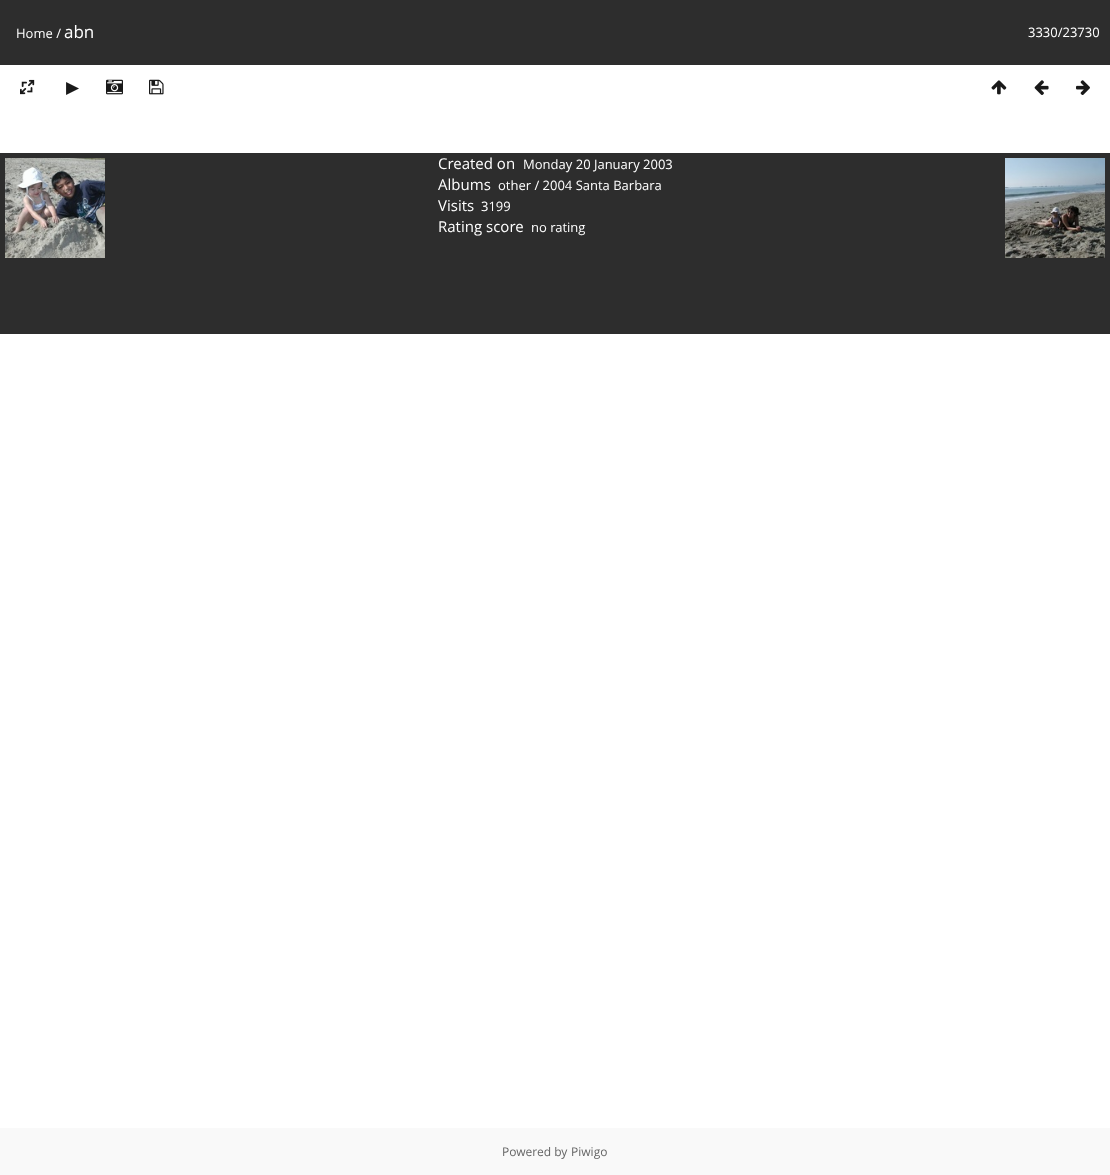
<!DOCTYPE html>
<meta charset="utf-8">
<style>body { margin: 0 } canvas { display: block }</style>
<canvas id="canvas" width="1110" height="1175"></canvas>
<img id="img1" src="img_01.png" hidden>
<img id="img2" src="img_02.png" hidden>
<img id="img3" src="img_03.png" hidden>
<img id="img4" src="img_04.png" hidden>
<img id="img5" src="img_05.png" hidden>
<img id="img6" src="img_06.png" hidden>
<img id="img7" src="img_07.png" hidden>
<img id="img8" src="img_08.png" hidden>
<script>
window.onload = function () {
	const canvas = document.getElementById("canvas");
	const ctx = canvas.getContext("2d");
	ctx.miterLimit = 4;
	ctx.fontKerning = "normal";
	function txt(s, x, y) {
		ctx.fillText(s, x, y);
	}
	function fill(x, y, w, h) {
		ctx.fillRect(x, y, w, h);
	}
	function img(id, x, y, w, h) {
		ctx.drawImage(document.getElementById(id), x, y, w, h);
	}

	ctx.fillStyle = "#FFFFFF";
	fill(0, 0, 1110, 1175);
	ctx.fillStyle = "#2D2D2D";
	fill(0, 0, 1110, 65);
	img("img1", 20, 79, 15, 16);
	img("img2", 106, 79, 17, 16);
	img("img3", 149, 79, 15, 16);
	img("img4", 991, 80, 16, 15);
	img("img5", 1034, 80, 15, 15);
	img("img6", 1076, 80, 14, 15);
	fill(0, 153, 1110, 181);
	img("img7", 5, 158, 100, 100);
	img("img8", 1005, 158, 100, 100);
	ctx.fillStyle = "#F9F9F9";
	fill(0, 1128, 1110, 47);
	ctx.font = "13px Open Sans";
	ctx.fillStyle = "#FFFFFF";
	txt("Home /", 16, 38);
	ctx.font = "17px Open Sans";
	txt("abn", 64, 38);
	ctx.font = "13px Open Sans";
	txt("3330/23730", 1028, 37);
	ctx.font = "17px DejaVu Sans";
	ctx.fillStyle = "#1A1A1A";
	txt("▶", 66, 93);
	ctx.font = "15px Open Sans";
	ctx.fillStyle = "#FFFFFF";
	txt("Created on", 438, 169);
	ctx.font = "13px Open Sans";
	txt("Monday 20 January 2003", 523, 169);
	ctx.font = "15px Open Sans";
	txt("Albums", 438, 190);
	ctx.font = "13px Open Sans";
	txt("other / 2004 Santa Barbara", 498, 190);
	ctx.font = "15px Open Sans";
	txt("Visits", 438, 211);
	ctx.font = "13px Open Sans";
	txt("3199", 481, 211);
	ctx.font = "15px Open Sans";
	txt("Rating score", 438, 232);
	ctx.font = "13px Open Sans";
	txt("no rating", 531, 232);
	ctx.font = "12px Open Sans";
	ctx.fillStyle = "#666666";
	txt("Powered by", 502, 1156);
	txt("Piwigo", 571, 1156);
};
</script>
